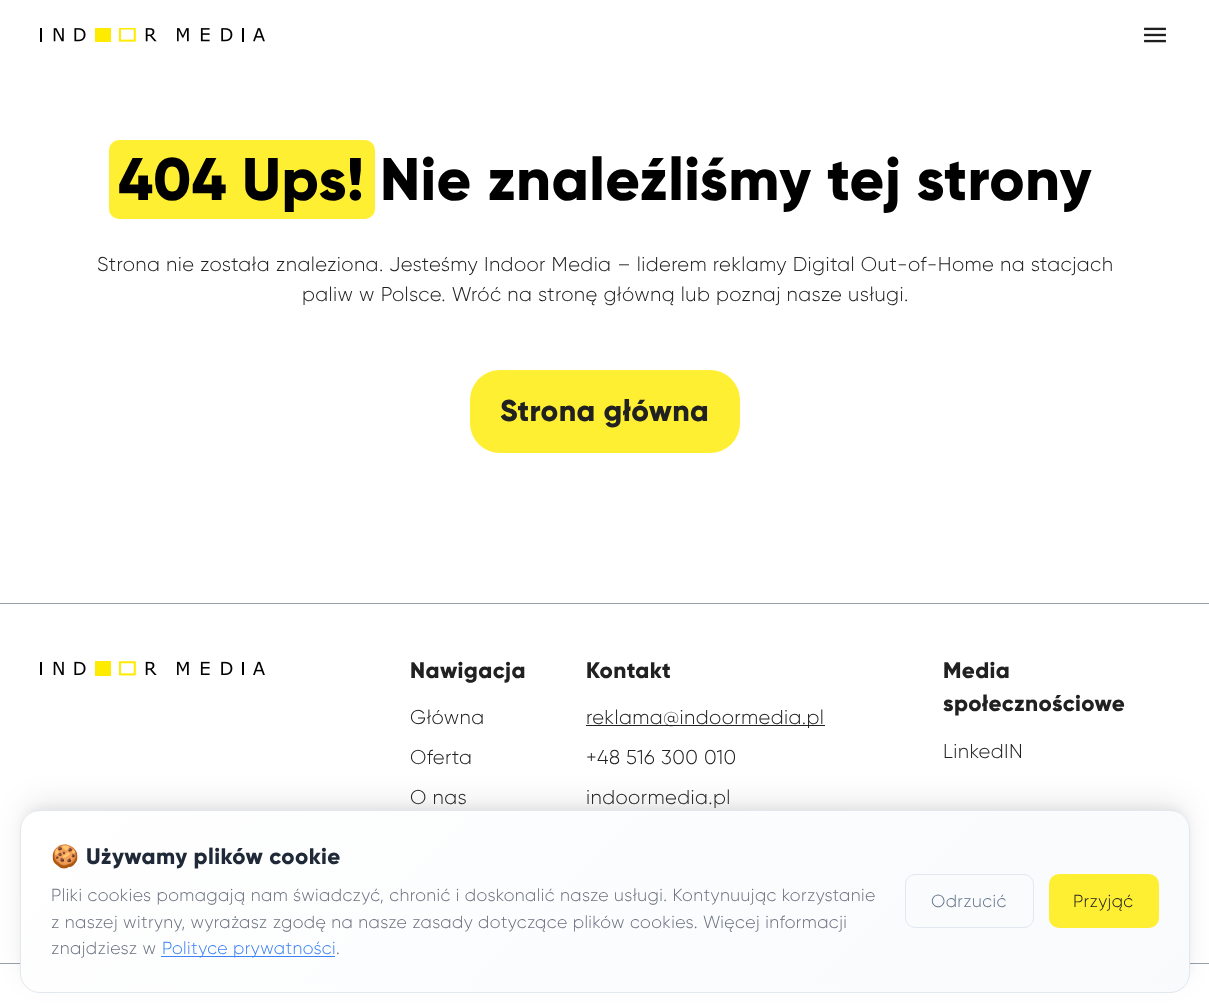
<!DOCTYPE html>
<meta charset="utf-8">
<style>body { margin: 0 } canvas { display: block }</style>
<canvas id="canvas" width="1209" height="1005"></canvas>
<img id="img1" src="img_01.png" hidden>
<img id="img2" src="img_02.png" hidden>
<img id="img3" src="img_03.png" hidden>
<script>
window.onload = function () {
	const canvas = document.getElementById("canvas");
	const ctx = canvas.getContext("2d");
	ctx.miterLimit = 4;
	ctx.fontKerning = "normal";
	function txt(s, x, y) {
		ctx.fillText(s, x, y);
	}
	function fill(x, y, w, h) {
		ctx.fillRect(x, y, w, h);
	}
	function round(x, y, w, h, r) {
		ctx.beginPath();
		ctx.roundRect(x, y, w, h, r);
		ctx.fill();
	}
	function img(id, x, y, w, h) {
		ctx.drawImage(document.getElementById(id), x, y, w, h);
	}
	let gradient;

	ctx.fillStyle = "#FFFFFF";
	fill(0, 0, 1209, 1005);
	img("img1", 40, 28, 225, 14);
	img("img2", 1144, 27, 22, 16);
	ctx.fillStyle = "#FFEF33";
	round(109, 140, 266, 79, 10);
	round(470, 370, 270, 83, 30);
	ctx.fillStyle = "#99A1AF";
	fill(0, 603, 1209, 1);
	fill(0, 963, 1209, 1);
	img("img3", 40, 661, 225, 15);
	ctx.fillStyle = "#212121";
	fill(586, 725, 239, 1);
	ctx.fillStyle = "rgba(0, 0, 0, 0.05)";
	ctx.filter = "blur(4px)";
	ctx.beginPath();
	ctx.roundRect(23, 808, 1165, 177, 18);
	ctx.fill();
	ctx.filter = "none";
	ctx.fillStyle = "rgba(0, 0, 0, 0.1)";
	ctx.filter = "blur(15.5px)";
	ctx.beginPath();
	ctx.roundRect(26, 804, 1158, 170, 14);
	ctx.fill();
	ctx.filter = "none";
	ctx.save();
	ctx.beginPath();
	ctx.roundRect(20, 810, 1170, 183, 20);
	ctx.clip();
	gradient = ctx.createLinearGradient(268, 564, 942, 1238);
	gradient.addColorStop(0, "#FFFFFF");
	gradient.addColorStop(1, "#F8FAFC");
	ctx.fillStyle = gradient;
	fill(21, 811, 1168, 180);
	gradient = ctx.createLinearGradient(268, 744, 942, 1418);
	gradient.addColorStop(0, "#FFFFFF");
	gradient.addColorStop(1, "#F8FAFC");
	ctx.fillStyle = gradient;
	fill(31, 991, 1148, 2);
	ctx.restore();
	ctx.beginPath();
	ctx.roundRect(20.5, 810.5, 1169, 182, 19.5);
	ctx.strokeStyle = "#E2E8F0";
	ctx.stroke();
	ctx.fillStyle = "#3B82F6";
	fill(161, 956, 174, 1);
	ctx.beginPath();
	ctx.roundRect(905.5, 874.5, 128, 53, 9.5);
	ctx.stroke();
	ctx.fillStyle = "#FFEF33";
	round(1049, 874, 110, 54, 10);
	ctx.letterSpacing = "0.4px";
	ctx.font = "800 60px Gilroy";
	ctx.fillStyle = "#000000";
	txt("404 Ups!", 118, 200);
	txt("Nie znaleźliśmy tej strony", 380, 200);
	ctx.font = "300 20px Gilroy";
	ctx.fillStyle = "#212121";
	txt("Strona nie została znaleziona. Jesteśmy Indoor Media – liderem reklamy Digital Out-of-Home na stacjach", 97, 271);
	txt("paliw w Polsce. Wróć na stronę główną lub poznaj nasze usługi.", 302, 301);
	ctx.font = "800 30px Gilroy";
	txt("Strona główna", 500, 421);
	ctx.font = "800 22.5px Gilroy";
	txt("Nawigacja", 410, 678);
	ctx.font = "300 20px Gilroy";
	txt("Główna", 410, 724);
	txt("Oferta", 410, 764);
	txt("O nas", 410, 804);
	ctx.font = "800 22.5px Gilroy";
	txt("Kontakt", 586, 678);
	ctx.font = "300 20px Gilroy";
	txt("reklama@indoormedia.pl", 586, 724);
	txt("+48 516 300 010", 586, 764);
	txt("indoormedia.pl", 586, 804);
	ctx.font = "800 22.5px Gilroy";
	txt("Media", 943, 678);
	txt("społecznościowe", 943, 711);
	ctx.font = "300 20px Gilroy";
	txt("LinkedIN", 943, 758);
	ctx.font = "bold 22.5px Noto Color Emoji";
	ctx.fillStyle = "#1F2937";
	txt("🍪", 51, 864);
	ctx.font = "800 22.5px Gilroy";
	txt("Używamy plików cookie", 86, 864);
	ctx.font = "300 17.5px Gilroy";
	ctx.fillStyle = "#6B7280";
	txt("Pliki cookies pomagają nam świadczyć, chronić i doskonalić nasze usługi. Kontynuując korzystanie", 51, 901);
	txt("z naszej witryny, wyrażasz zgodę na nasze zasady dotyczące plików cookies. Więcej informacji", 51, 928);
	txt("znajdziesz w", 51, 954);
	ctx.fillStyle = "#3B82F6";
	txt("Polityce prywatności", 162, 954);
	ctx.fillStyle = "#6B7280";
	txt(".", 336, 954);
	ctx.fillStyle = "#64748B";
	txt("Odrzucić", 931, 907);
	ctx.fillStyle = "#212121";
	txt("Przyjąć", 1073, 907);
};
</script>
